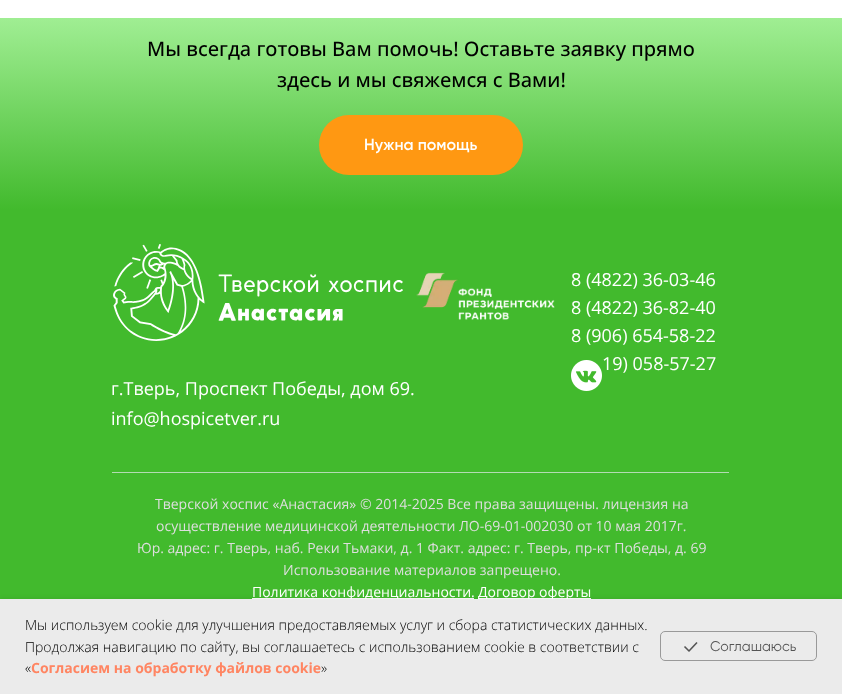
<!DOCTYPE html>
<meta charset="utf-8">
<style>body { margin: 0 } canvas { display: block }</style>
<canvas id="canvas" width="842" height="694"></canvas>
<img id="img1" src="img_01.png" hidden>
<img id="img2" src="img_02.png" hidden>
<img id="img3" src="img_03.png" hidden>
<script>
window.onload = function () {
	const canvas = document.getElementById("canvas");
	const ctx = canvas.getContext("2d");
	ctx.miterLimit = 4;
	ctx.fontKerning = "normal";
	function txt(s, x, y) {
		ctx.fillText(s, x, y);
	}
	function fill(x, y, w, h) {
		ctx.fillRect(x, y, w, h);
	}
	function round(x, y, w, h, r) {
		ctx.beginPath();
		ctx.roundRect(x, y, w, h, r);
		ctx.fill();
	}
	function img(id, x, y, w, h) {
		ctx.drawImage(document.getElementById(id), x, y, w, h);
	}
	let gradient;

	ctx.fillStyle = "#FFFFFF";
	fill(0, 0, 842, 694);
	gradient = ctx.createLinearGradient(421, 210, 421, 18);
	gradient.addColorStop(0, "#42BA2D");
	gradient.addColorStop(1, "#A0EE93");
	ctx.fillStyle = gradient;
	fill(0, 18, 842, 192);
	ctx.fillStyle = "#FF9812";
	round(319, 115, 204, 60, 30);
	ctx.fillStyle = "#42BA2D";
	fill(0, 210, 842, 389);
	img("img1", 113, 244, 290, 97);
	img("img2", 416, 272, 139, 48);
	img("img3", 571, 360, 31, 31);
	ctx.fillStyle = "#B3DBB3";
	fill(112, 472, 617, 1);
	ctx.fillStyle = "#FFFFFF";
	fill(252, 598, 222, 1);
	fill(478, 598, 113, 1);
	ctx.fillStyle = "rgba(0, 0, 0, 0.1)";
	ctx.filter = "blur(2.5px)";
	ctx.beginPath();
	ctx.rect(0, 599, 842, 95);
	ctx.fill();
	ctx.filter = "none";
	ctx.font = "500 20px Open Sans";
	ctx.fillStyle = "#000000";
	txt("Мы всегда готовы Вам помочь! Оставьте заявку прямо", 147, 56);
	txt("здесь и мы свяжемся с Вами!", 277, 87);
	ctx.font = "600 16px Gilroy";
	ctx.fillStyle = "#FFFFFF";
	txt("Нужна помощь", 364, 150);
	ctx.font = "18px Open Sans";
	txt("8 (4822) 36-03-46", 571, 286);
	txt("8 (4822) 36-82-40", 571, 314);
	txt("8 (906) 654-58-22", 571, 342);
	txt("19) 058-57-27", 602, 370);
	txt("г.Тверь, Проспект Победы, дом 69.", 111, 395);
	txt("info@hospicetver.ru", 111, 425);
	ctx.font = "14px Open Sans";
	ctx.fillStyle = "#DEDEDE";
	txt("Тверской хоспис «Анастасия» © 2014-2025 Все права защищены. лицензия на", 155, 509);
	txt("осуществление медицинской деятельности ЛО-69-01-002030 от 10 мая 2017г.", 156, 531);
	txt("Юр. адрес: г. Тверь, наб. Реки Тьмаки, д. 1 Факт. адрес: г. Тверь, пр-кт Победы, д. 69", 137, 553);
	txt("Использование материалов запрещено.", 283, 575);
	ctx.fillStyle = "#FFFFFF";
	txt("Политика конфиденциальности.", 252, 597);
	txt("Договор оферты", 478, 597);
	ctx.fillStyle = "#EBEBEB";
	fill(0, 599, 842, 95);
	ctx.font = "300 14px Open Sans";
	ctx.fillStyle = "#000000";
	txt("Мы используем cookie для улучшения предоставляемых услуг и сбора статистических данных.", 25, 630);
	txt("Продолжая навигацию по сайту, вы соглашаетесь с использованием cookie в соответствии с", 25, 652);
	txt("«", 25, 673);
	ctx.font = "bold 14px Open Sans";
	ctx.fillStyle = "#FF8562";
	txt("Согласием на обработку файлов cookie", 31, 673);
	ctx.font = "300 14px Open Sans";
	ctx.fillStyle = "#000000";
	txt("»", 321, 673);
	ctx.beginPath();
	ctx.roundRect(660.5, 631.5, 156, 29, 4.5);
	ctx.strokeStyle = "#999999";
	ctx.stroke();
	ctx.beginPath();
	ctx.moveTo(684.5, 646.5);
	ctx.lineTo(689, 651);
	ctx.lineTo(697, 642.5);
	ctx.strokeStyle = "#555555";
	ctx.lineWidth = 1.6;
	ctx.lineJoin = "round";
	ctx.stroke();
	ctx.font = "14px Gilroy";
	ctx.fillStyle = "#555555";
	txt("Соглашаюсь", 710, 651);
};
</script>
